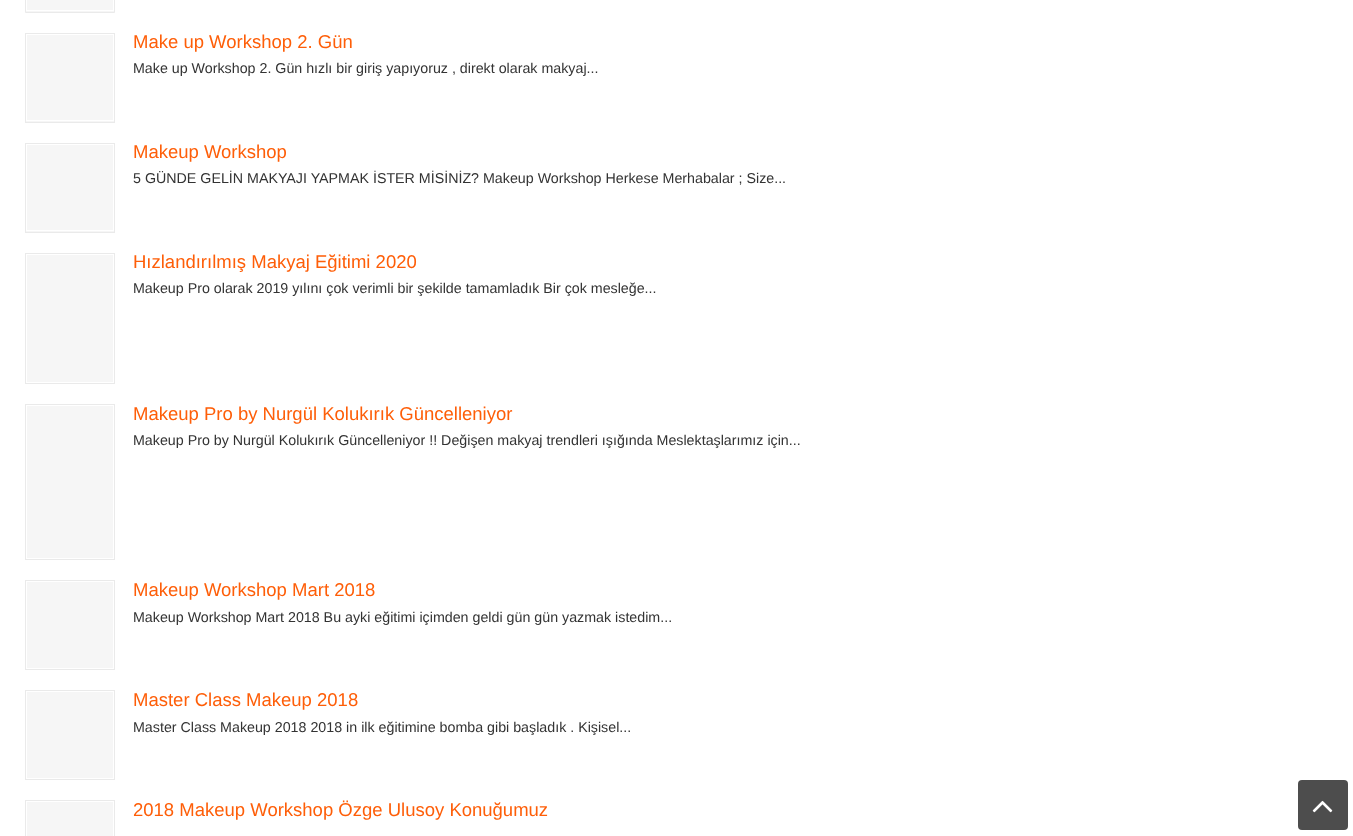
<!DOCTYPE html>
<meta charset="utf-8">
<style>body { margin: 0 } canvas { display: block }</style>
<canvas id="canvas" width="1353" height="836"></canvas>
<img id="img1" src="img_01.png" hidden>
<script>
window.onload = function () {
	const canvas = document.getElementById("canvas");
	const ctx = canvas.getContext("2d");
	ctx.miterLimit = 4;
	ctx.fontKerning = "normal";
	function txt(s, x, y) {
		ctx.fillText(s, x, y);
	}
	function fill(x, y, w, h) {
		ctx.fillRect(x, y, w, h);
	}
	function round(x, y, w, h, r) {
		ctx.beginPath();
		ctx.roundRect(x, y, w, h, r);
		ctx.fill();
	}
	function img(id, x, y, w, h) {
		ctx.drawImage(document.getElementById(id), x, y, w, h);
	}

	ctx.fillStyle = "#FFFFFF";
	fill(0, 0, 1353, 836);
	ctx.fillStyle = "#F6F6F6";
	ctx.beginPath();
	ctx.rect(25.5, -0.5, 89, 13);
	ctx.fill();
	ctx.strokeStyle = "#EAEAEA";
	ctx.stroke();
	ctx.strokeStyle = "#FFFFFF";
	ctx.strokeRect(26.5, -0.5, 87, 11);
	fill(26, 35, 88, 87);
	ctx.strokeStyle = "#EAEAEA";
	ctx.strokeRect(25.5, 33.5, 89, 89);
	ctx.strokeStyle = "#FFFFFF";
	ctx.strokeRect(26.5, 34.5, 87, 86);
	fill(26, 145, 88, 87);
	ctx.strokeStyle = "#EAEAEA";
	ctx.strokeRect(25.5, 143.5, 89, 89);
	ctx.strokeStyle = "#FFFFFF";
	ctx.strokeRect(26.5, 144.5, 87, 86);
	fill(27, 255, 86, 127);
	ctx.strokeStyle = "#EAEAEA";
	ctx.strokeRect(25.5, 253.5, 89, 130);
	fill(27, 406, 86, 152);
	ctx.strokeRect(25.5, 404.5, 89, 155);
	fill(27, 582, 86, 86);
	ctx.strokeRect(25.5, 580.5, 89, 89);
	fill(27, 692, 86, 86);
	ctx.strokeRect(25.5, 690.5, 89, 89);
	fill(27, 802, 86, 34);
	ctx.strokeRect(25.5, 800.5, 89, 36);
	ctx.fillStyle = "#4D4D4D";
	round(1298, 780, 50, 50, 4);
	img("img1", 1312, 800, 21, 13);
	ctx.font = "18.5px Liberation Sans";
	ctx.fillStyle = "#FE5E08";
	txt("Make up Workshop 2. Gün", 133, 48);
	ctx.font = "14.25px Liberation Sans";
	ctx.fillStyle = "#333333";
	txt("Make up Workshop 2. Gün hızlı bir giriş yapıyoruz , direkt olarak makyaj...", 133, 73);
	ctx.font = "18.5px Liberation Sans";
	ctx.fillStyle = "#FE5E08";
	txt("Makeup Workshop", 133, 158);
	ctx.font = "14.25px Liberation Sans";
	ctx.fillStyle = "#333333";
	txt("5 GÜNDE GELİN MAKYAJI YAPMAK İSTER MİSİNİZ? Makeup Workshop Herkese Merhabalar ; Size...", 133, 183);
	ctx.font = "18.5px Liberation Sans";
	ctx.fillStyle = "#FE5E08";
	txt("Hızlandırılmış Makyaj Eğitimi 2020", 133, 268);
	ctx.font = "14.25px Liberation Sans";
	ctx.fillStyle = "#333333";
	txt("Makeup Pro olarak 2019 yılını çok verimli bir şekilde tamamladık Bir çok mesleğe...", 133, 293);
	ctx.font = "18.5px Liberation Sans";
	ctx.fillStyle = "#FE5E08";
	txt("Makeup Pro by Nurgül Kolukırık Güncelleniyor", 133, 420);
	ctx.font = "14.25px Liberation Sans";
	ctx.fillStyle = "#333333";
	txt("Makeup Pro by Nurgül Kolukırık Güncelleniyor !! Değişen makyaj trendleri ışığında Meslektaşlarımız için...", 133, 445);
	ctx.font = "18.5px Liberation Sans";
	ctx.fillStyle = "#FE5E08";
	txt("Makeup Workshop Mart 2018", 133, 596);
	ctx.font = "14.25px Liberation Sans";
	ctx.fillStyle = "#333333";
	txt("Makeup Workshop Mart 2018 Bu ayki eğitimi içimden geldi gün gün yazmak istedim...", 133, 622);
	ctx.font = "18.5px Liberation Sans";
	ctx.fillStyle = "#FE5E08";
	txt("Master Class Makeup 2018", 133, 706);
	ctx.font = "14.25px Liberation Sans";
	ctx.fillStyle = "#333333";
	txt("Master Class Makeup 2018 2018 in ilk eğitimine bomba gibi başladık . Kişisel...", 133, 732);
	ctx.font = "18.5px Liberation Sans";
	ctx.fillStyle = "#FE5E08";
	txt("2018 Makeup Workshop Özge Ulusoy Konuğumuz", 133, 816);
};
</script>
